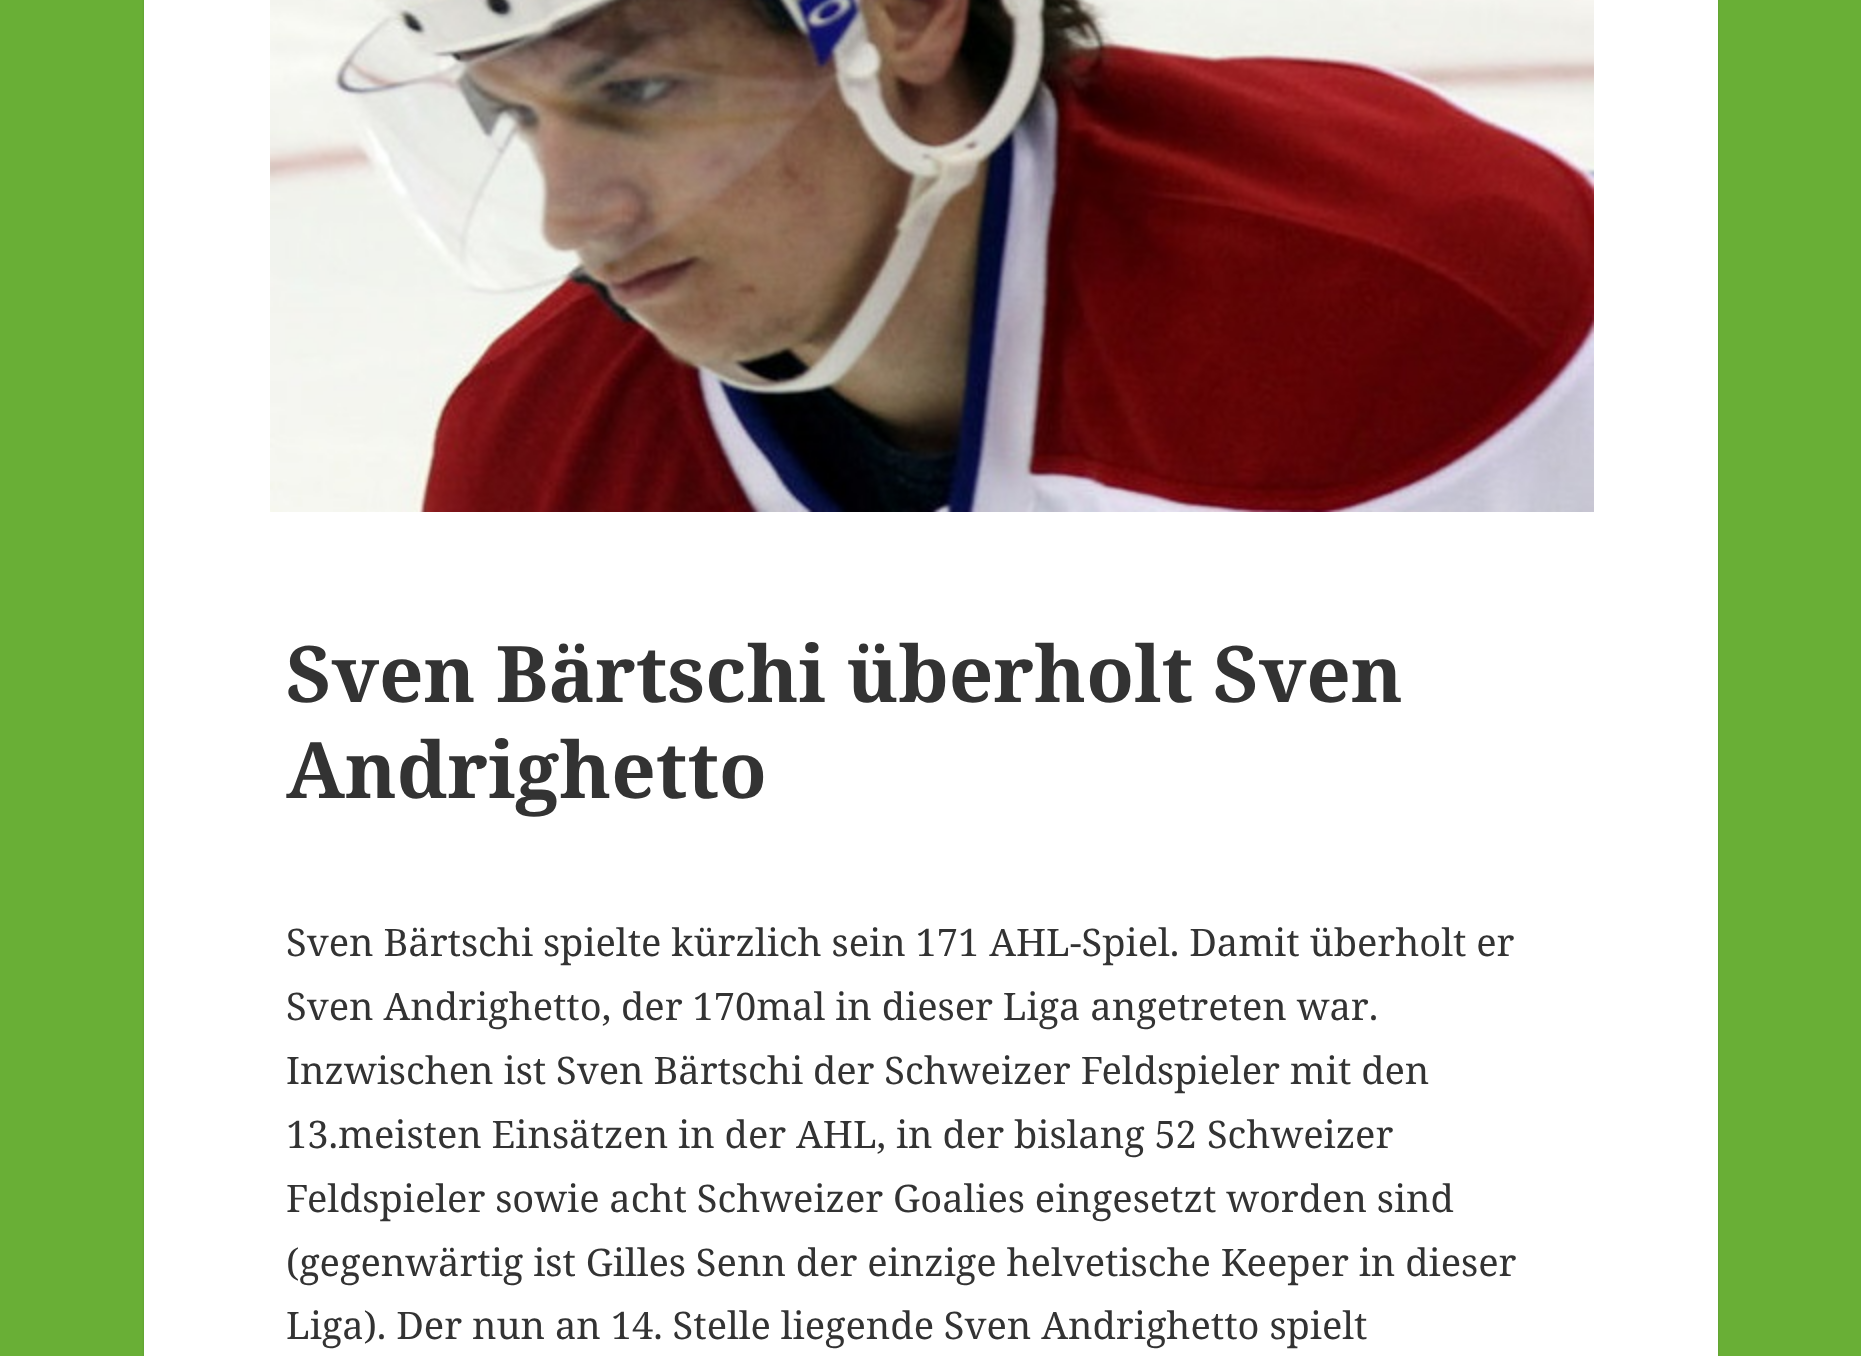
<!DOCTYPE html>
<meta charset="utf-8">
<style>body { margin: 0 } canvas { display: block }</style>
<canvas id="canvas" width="1861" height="1356"></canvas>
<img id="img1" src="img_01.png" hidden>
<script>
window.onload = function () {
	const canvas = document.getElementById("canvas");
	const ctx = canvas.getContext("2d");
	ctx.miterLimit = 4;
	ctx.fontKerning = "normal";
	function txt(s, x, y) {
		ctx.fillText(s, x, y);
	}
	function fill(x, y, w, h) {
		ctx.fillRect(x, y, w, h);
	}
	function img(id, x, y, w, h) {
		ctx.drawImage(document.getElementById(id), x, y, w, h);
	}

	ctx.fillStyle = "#69AF36";
	fill(0, 0, 1861, 1356);
	ctx.fillStyle = "rgba(0, 0, 0, 0.15)";
	ctx.filter = "blur(1px)";
	ctx.beginPath();
	ctx.rect(144, -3, 1574, 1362);
	ctx.fill();
	ctx.filter = "none";
	ctx.fillStyle = "#FFFFFF";
	fill(144, 0, 1574, 1356);
	img("img1", 270, 0, 1324, 512);
	ctx.font = "bold 78px Noto Serif";
	ctx.fillStyle = "#333333";
	txt("Sven Bärtschi überholt Sven", 286, 702);
	txt("Andrighetto", 286, 798);
	ctx.font = "38px Noto Serif";
	txt("Sven Bärtschi spielte kürzlich sein 171 AHL-Spiel. Damit überholt er", 286, 956);
	txt("Sven Andrighetto, der 170mal in dieser Liga angetreten war.", 286, 1020);
	txt("Inzwischen ist Sven Bärtschi der Schweizer Feldspieler mit den", 286, 1084);
	txt("13.meisten Einsätzen in der AHL, in der bislang 52 Schweizer", 286, 1148);
	txt("Feldspieler sowie acht Schweizer Goalies eingesetzt worden sind", 286, 1212);
	txt("(gegenwärtig ist Gilles Senn der einzige helvetische Keeper in dieser", 286, 1276);
	txt("Liga). Der nun an 14. Stelle liegende Sven Andrighetto spielt", 286, 1339);
};
</script>
